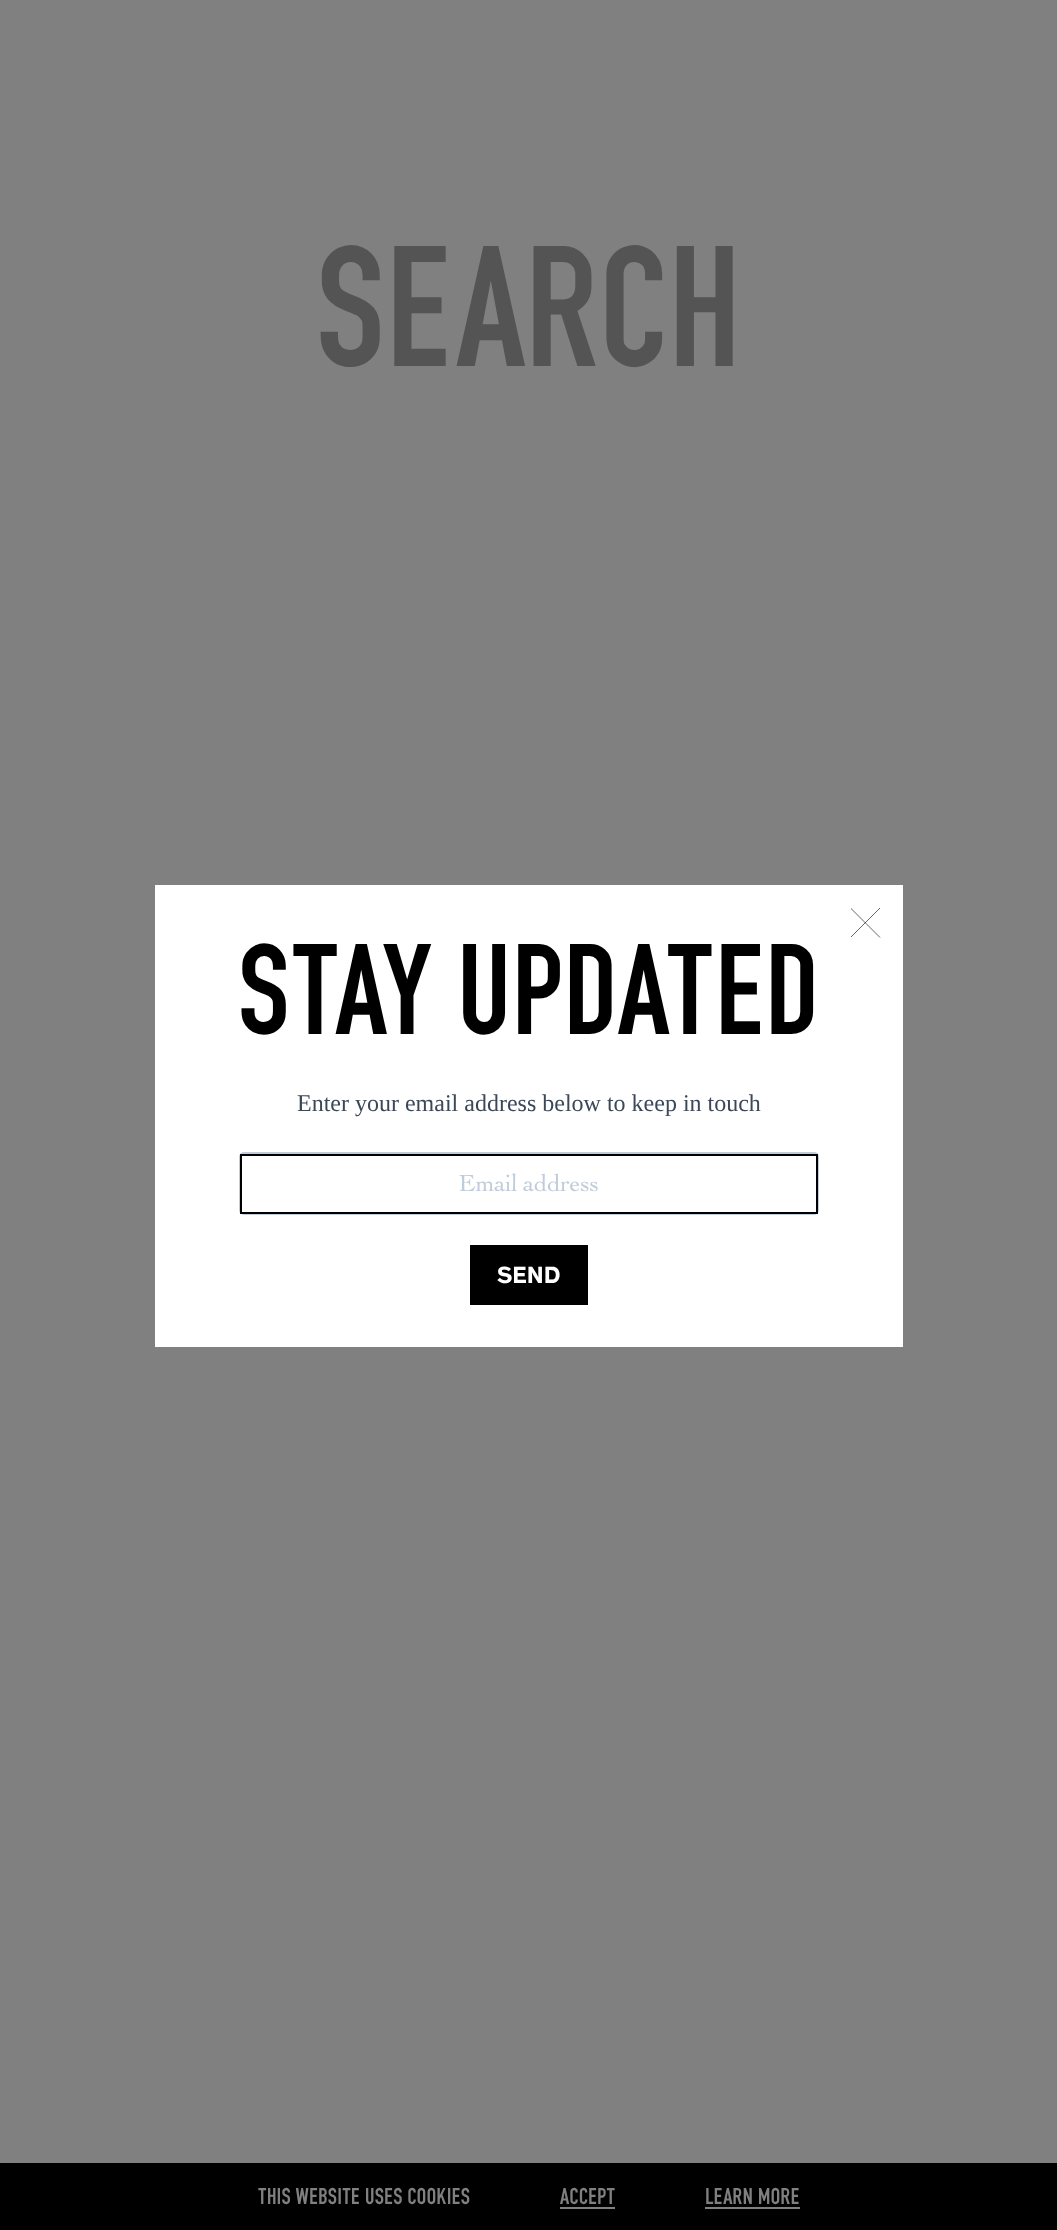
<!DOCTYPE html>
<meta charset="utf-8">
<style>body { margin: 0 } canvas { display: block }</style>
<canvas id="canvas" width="1057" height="2230"></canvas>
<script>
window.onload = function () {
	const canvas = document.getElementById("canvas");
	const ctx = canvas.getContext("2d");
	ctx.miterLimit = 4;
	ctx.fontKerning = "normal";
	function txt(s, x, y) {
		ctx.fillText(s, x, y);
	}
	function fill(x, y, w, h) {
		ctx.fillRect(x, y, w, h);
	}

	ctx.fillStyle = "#808080";
	fill(0, 0, 1057, 2230);
	ctx.fillStyle = "#000000";
	fill(0, 2163, 1057, 67);
	ctx.fillStyle = "#808080";
	fill(560, 2207, 55, 2);
	fill(705, 2207, 95, 2);
	ctx.fillStyle = "#FFFFFF";
	fill(155, 885, 748, 462);
	ctx.save();
	ctx.beginPath();
	ctx.rect(851, 908, 30, 30);
	ctx.clip();
	ctx.beginPath();
	ctx.moveTo(850.5, 908);
	ctx.lineTo(880, 937.5);
	ctx.moveTo(850.5, 937.5);
	ctx.lineTo(880, 908);
	ctx.strokeStyle = "#000000";
	ctx.lineWidth = 0.6;
	ctx.stroke();
	ctx.restore();
	ctx.beginPath();
	ctx.roundRect(240, 1153, 578, 61, 4);
	ctx.strokeStyle = "#C0CCDA";
	ctx.lineWidth = 2;
	ctx.stroke();
	ctx.strokeStyle = "#000000";
	ctx.strokeRect(241, 1155, 576, 58);
	ctx.fillStyle = "#000000";
	fill(470, 1245, 118, 60);
	ctx.letterSpacing = "-0.5px";
	ctx.font = "180px DIN";
	ctx.fillStyle = "#545454";
	txt("SEARCH", 316, 366);
	ctx.letterSpacing = "0px";
	ctx.font = "24px DIN";
	ctx.fillStyle = "#808080";
	txt("THIS WEBSITE USES COOKIES", 258, 2204);
	txt("ACCEPT", 560, 2204);
	txt("LEARN MORE", 705, 2204);
	ctx.letterSpacing = "-0.5px";
	ctx.font = "135px DIN";
	ctx.fillStyle = "#000000";
	txt("STAY UPDATED", 238, 1034);
	ctx.letterSpacing = "0px";
	ctx.font = "24px Liberation Serif";
	ctx.fillStyle = "#3C4858";
	txt("Enter your email address below to keep in touch", 297, 1111);
	ctx.font = "24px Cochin";
	ctx.fillStyle = "#C0CCDA";
	txt("Email address", 459, 1191);
	ctx.font = "bold 24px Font";
	ctx.fillStyle = "#FFFFFF";
	txt("SEND", 497, 1283);
};
</script>
